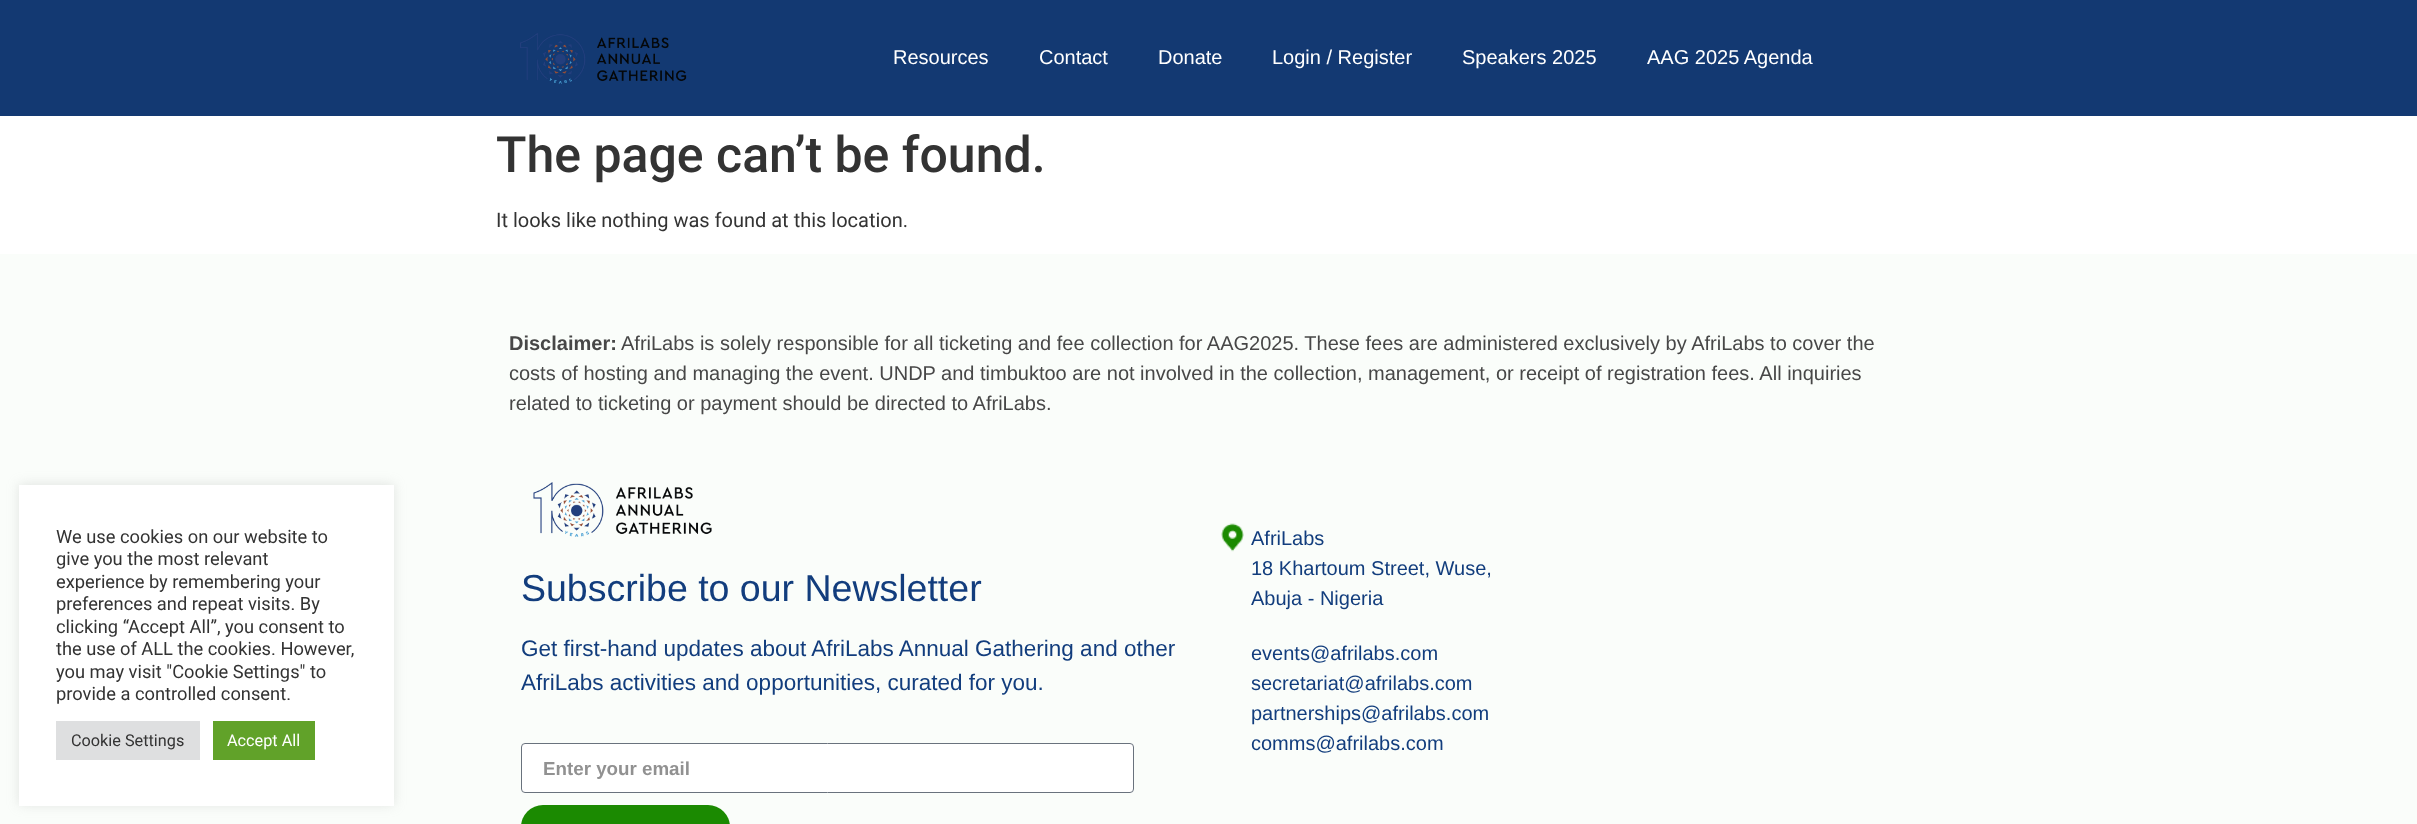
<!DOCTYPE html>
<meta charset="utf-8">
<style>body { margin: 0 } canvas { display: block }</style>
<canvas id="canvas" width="2417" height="824"></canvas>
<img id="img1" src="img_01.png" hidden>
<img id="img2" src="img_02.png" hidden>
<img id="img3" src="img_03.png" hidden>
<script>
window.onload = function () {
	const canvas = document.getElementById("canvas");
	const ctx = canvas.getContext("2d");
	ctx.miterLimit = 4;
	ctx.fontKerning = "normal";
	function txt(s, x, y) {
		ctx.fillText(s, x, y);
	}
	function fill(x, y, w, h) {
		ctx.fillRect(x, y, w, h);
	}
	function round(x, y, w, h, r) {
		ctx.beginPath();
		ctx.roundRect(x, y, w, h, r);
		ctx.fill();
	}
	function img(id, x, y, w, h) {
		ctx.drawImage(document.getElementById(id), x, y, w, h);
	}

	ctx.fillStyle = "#FFFFFF";
	fill(0, 0, 2417, 824);
	ctx.fillStyle = "#133972";
	fill(0, 0, 2417, 116);
	img("img1", 520, 33, 167, 51);
	ctx.fillStyle = "#FAFDFA";
	fill(0, 254, 2417, 570);
	ctx.fillStyle = "rgba(172, 171, 171, 0.3)";
	ctx.filter = "blur(6px)";
	ctx.beginPath();
	ctx.rect(19, 484, 375, 321);
	ctx.fill();
	ctx.filter = "none";
	ctx.fillStyle = "#FFFFFF";
	fill(19, 485, 375, 321);
	ctx.fillStyle = "#DEDFE0";
	fill(56, 721, 144, 39);
	ctx.fillStyle = "#61A229";
	fill(213, 721, 102, 39);
	img("img2", 533, 482, 179, 55);
	ctx.fillStyle = "#FFFFFF";
	ctx.beginPath();
	ctx.roundRect(521.5, 743.5, 612, 49, 3.5);
	ctx.fill();
	ctx.strokeStyle = "#69727D";
	ctx.stroke();
	ctx.fillStyle = "#1B8A01";
	round(521, 805, 209, 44, 25);
	img("img3", 1221, 523, 23, 29);
	ctx.font = "20px Liberation Sans";
	ctx.fillStyle = "#FFFFFF";
	txt("Resources", 893, 64);
	txt("Contact", 1039, 64);
	txt("Donate", 1158, 64);
	txt("Login / Register", 1272, 64);
	txt("Speakers 2025", 1462, 64);
	txt("AAG 2025 Agenda", 1647, 64);
	ctx.font = "500 50px Roboto";
	ctx.fillStyle = "#333333";
	txt("The page can’t be found.", 496, 172);
	ctx.font = "20px Roboto";
	txt("It looks like nothing was found at this location.", 496, 227);
	ctx.font = "18.3px Roboto";
	txt("We use cookies on our website to", 56, 543);
	txt("give you the most relevant", 56, 565);
	txt("experience by remembering your", 56, 588);
	txt("preferences and repeat visits. By", 56, 610);
	txt("clicking “Accept All”, you consent to", 56, 633);
	txt("the use of ALL the cookies. However,", 56, 655);
	txt("you may visit \"Cookie Settings\" to", 56, 678);
	txt("provide a controlled consent.", 56, 700);
	ctx.font = "16.25px Roboto";
	txt("Cookie Settings", 71, 746);
	ctx.fillStyle = "#FFFFFF";
	txt("Accept All", 227, 746);
	ctx.font = "bold 20px Liberation Sans";
	ctx.fillStyle = "#474747";
	txt("Disclaimer:", 509, 350);
	ctx.font = "20px Liberation Sans";
	txt("AfriLabs is solely responsible for all ticketing and fee collection for AAG2025. These fees are administered exclusively by AfriLabs to cover the", 621, 350);
	txt("costs of hosting and managing the event. UNDP and timbuktoo are not involved in the collection, management, or receipt of registration fees. All inquiries", 509, 380);
	txt("related to ticketing or payment should be directed to AfriLabs.", 509, 410);
	ctx.font = "37.5px Liberation Sans";
	ctx.fillStyle = "#123D7D";
	txt("Subscribe to our Newsletter", 521, 601);
	ctx.font = "22.5px Liberation Sans";
	txt("Get first-hand updates about AfriLabs Annual Gathering and other", 521, 656);
	txt("AfriLabs activities and opportunities, curated for you.", 521, 690);
	ctx.font = "bold 18.75px Liberation Sans";
	ctx.fillStyle = "#919191";
	txt("Enter your email", 543, 775);
	ctx.font = "20px Liberation Sans";
	ctx.fillStyle = "#123D7D";
	txt("AfriLabs", 1251, 545);
	txt("18 Khartoum Street, Wuse,", 1251, 575);
	txt("Abuja - Nigeria", 1251, 605);
	txt("events@afrilabs.com", 1251, 660);
	txt("secretariat@afrilabs.com", 1251, 690);
	txt("partnerships@afrilabs.com", 1251, 720);
	txt("comms@afrilabs.com", 1251, 750);
};
</script>
